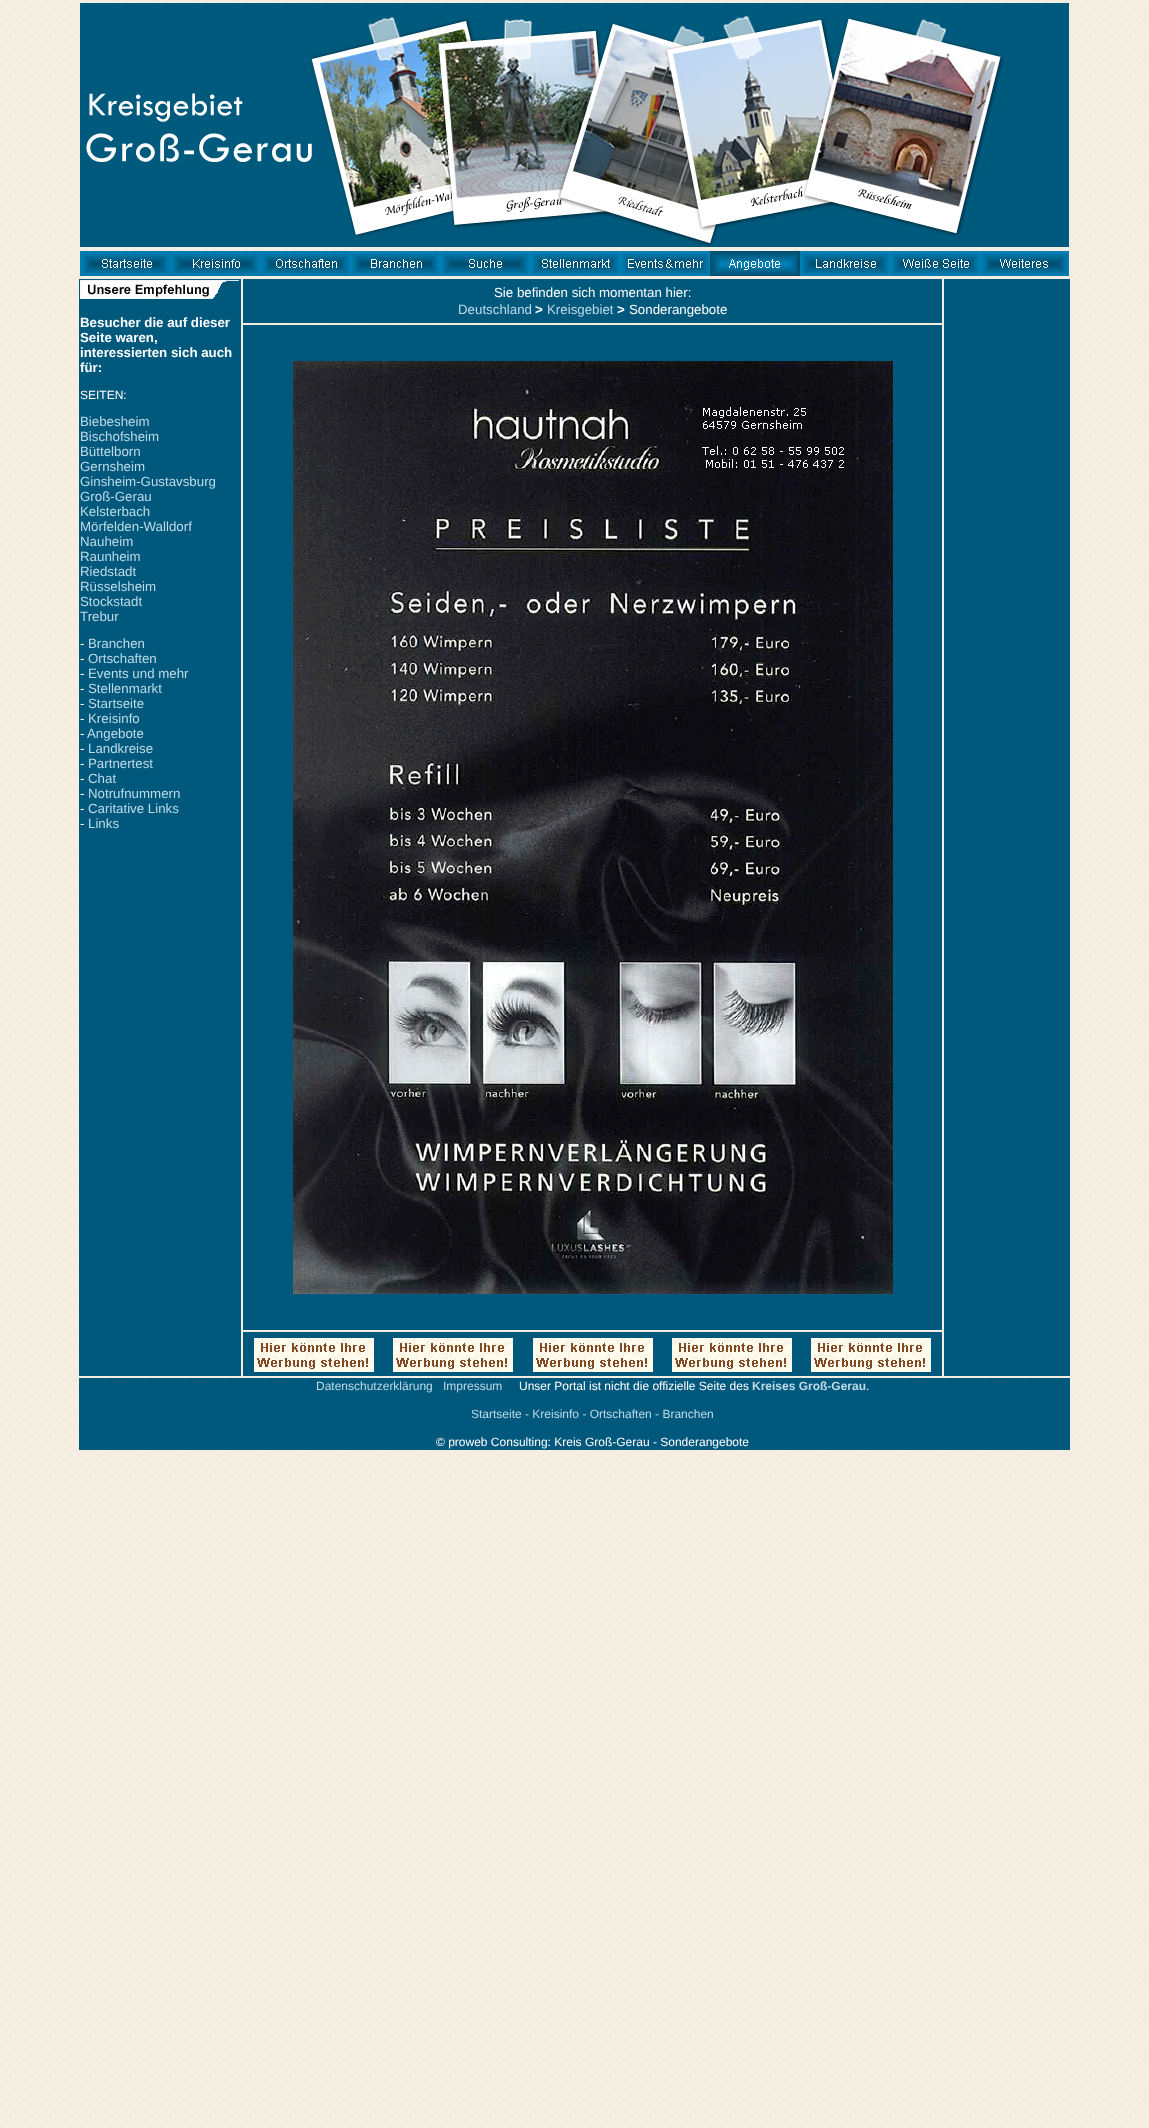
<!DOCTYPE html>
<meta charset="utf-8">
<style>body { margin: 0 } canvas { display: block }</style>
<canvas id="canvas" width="1149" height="2128"></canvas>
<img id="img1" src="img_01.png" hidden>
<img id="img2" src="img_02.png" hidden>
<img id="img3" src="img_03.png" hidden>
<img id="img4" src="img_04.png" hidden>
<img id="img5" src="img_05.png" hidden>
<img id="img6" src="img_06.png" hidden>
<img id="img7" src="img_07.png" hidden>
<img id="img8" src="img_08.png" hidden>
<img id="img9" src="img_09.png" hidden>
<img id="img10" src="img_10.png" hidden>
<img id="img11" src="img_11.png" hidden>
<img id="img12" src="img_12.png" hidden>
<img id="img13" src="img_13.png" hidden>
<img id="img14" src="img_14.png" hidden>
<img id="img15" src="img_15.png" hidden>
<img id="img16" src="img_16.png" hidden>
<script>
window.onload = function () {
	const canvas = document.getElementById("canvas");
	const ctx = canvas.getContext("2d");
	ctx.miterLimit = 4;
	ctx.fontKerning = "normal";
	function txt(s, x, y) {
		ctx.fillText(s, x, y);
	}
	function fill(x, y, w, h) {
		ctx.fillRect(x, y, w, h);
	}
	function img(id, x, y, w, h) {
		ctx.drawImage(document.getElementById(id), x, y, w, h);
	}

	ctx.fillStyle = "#FFFFFF";
	fill(0, 0, 1149, 2128);
	img("img1", 0, 0, 1149, 2128);
	img("img2", 80, 3, 989, 244);
	img("img3", 80, 251, 90, 25);
	img("img4", 170, 251, 90, 25);
	img("img5", 260, 251, 90, 25);
	img("img6", 350, 251, 90, 25);
	img("img7", 440, 251, 90, 25);
	img("img8", 530, 251, 90, 25);
	img("img9", 620, 251, 90, 25);
	img("img10", 710, 251, 90, 25);
	img("img11", 800, 251, 90, 25);
	img("img12", 890, 251, 90, 25);
	img("img13", 980, 251, 89, 25);
	ctx.fillStyle = "#00587D";
	fill(243, 279, 699, 44);
	fill(944, 279, 126, 1097);
	fill(79, 279, 162, 1097);
	img("img14", 80, 280, 159, 19);
	fill(243, 325, 699, 1005);
	img("img15", 293, 361, 600, 933);
	fill(243, 1332, 699, 44);
	img("img16", 254, 1338, 120, 34);
	img("img16", 393, 1338, 120, 34);
	img("img16", 533, 1338, 120, 34);
	img("img16", 672, 1338, 120, 34);
	img("img16", 811, 1338, 120, 34);
	fill(79, 1378, 991, 72);
	ctx.font = "13.3px Liberation Sans";
	ctx.fillStyle = "#FFFFFF";
	txt("Sie befinden sich momentan hier:", 494, 297);
	ctx.fillStyle = "#BEDBE8";
	txt("Deutschland", 458, 314);
	ctx.font = "bold 13.3px Liberation Sans";
	ctx.fillStyle = "#FFFFFF";
	txt(">", 535, 314);
	ctx.font = "13.3px Liberation Sans";
	ctx.fillStyle = "#BEDBE8";
	txt("Kreisgebiet", 547, 314);
	ctx.font = "bold 13.3px Liberation Sans";
	ctx.fillStyle = "#FFFFFF";
	txt(">", 617, 314);
	ctx.font = "13.3px Liberation Sans";
	txt("Sonderangebote", 629, 314);
	ctx.font = "bold 13.3px Liberation Sans";
	txt("Besucher die auf dieser", 80, 327);
	txt("Seite waren,", 80, 342);
	txt("interessierten sich auch", 80, 357);
	txt("für:", 80, 372);
	ctx.font = "12px Liberation Sans";
	txt("SEITEN:", 80, 399);
	ctx.font = "13.3px Liberation Sans";
	ctx.fillStyle = "#BEDBE8";
	txt("Biebesheim", 80, 426);
	txt("Bischofsheim", 80, 441);
	txt("Büttelborn", 80, 456);
	txt("Gernsheim", 80, 471);
	txt("Ginsheim-Gustavsburg", 80, 486);
	txt("Groß-Gerau", 80, 501);
	txt("Kelsterbach", 80, 516);
	txt("Mörfelden-Walldorf", 80, 531);
	txt("Nauheim", 80, 546);
	txt("Raunheim", 80, 561);
	txt("Riedstadt", 80, 576);
	txt("Rüsselsheim", 80, 591);
	txt("Stockstadt", 80, 606);
	txt("Trebur", 80, 621);
	ctx.fillStyle = "#FFFFFF";
	txt("-", 80, 648);
	ctx.fillStyle = "#BEDBE8";
	txt("Branchen", 88, 648);
	ctx.fillStyle = "#FFFFFF";
	txt("-", 80, 663);
	ctx.fillStyle = "#BEDBE8";
	txt("Ortschaften", 88, 663);
	ctx.fillStyle = "#FFFFFF";
	txt("-", 80, 678);
	ctx.fillStyle = "#BEDBE8";
	txt("Events und mehr", 88, 678);
	ctx.fillStyle = "#FFFFFF";
	txt("-", 80, 693);
	ctx.fillStyle = "#BEDBE8";
	txt("Stellenmarkt", 88, 693);
	ctx.fillStyle = "#FFFFFF";
	txt("-", 80, 708);
	ctx.fillStyle = "#BEDBE8";
	txt("Startseite", 88, 708);
	ctx.fillStyle = "#FFFFFF";
	txt("-", 80, 723);
	ctx.fillStyle = "#BEDBE8";
	txt("Kreisinfo", 88, 723);
	ctx.fillStyle = "#FFFFFF";
	txt("-", 80, 738);
	ctx.fillStyle = "#BEDBE8";
	txt("Angebote", 87, 738);
	ctx.fillStyle = "#FFFFFF";
	txt("-", 80, 753);
	ctx.fillStyle = "#BEDBE8";
	txt("Landkreise", 88, 753);
	ctx.fillStyle = "#FFFFFF";
	txt("-", 80, 768);
	ctx.fillStyle = "#BEDBE8";
	txt("Partnertest", 88, 768);
	ctx.fillStyle = "#FFFFFF";
	txt("-", 80, 783);
	ctx.fillStyle = "#BEDBE8";
	txt("Chat", 88, 783);
	ctx.fillStyle = "#FFFFFF";
	txt("-", 80, 798);
	ctx.fillStyle = "#BEDBE8";
	txt("Notrufnummern", 88, 798);
	ctx.fillStyle = "#FFFFFF";
	txt("-", 80, 813);
	ctx.fillStyle = "#BEDBE8";
	txt("Caritative Links", 88, 813);
	ctx.fillStyle = "#FFFFFF";
	txt("-", 80, 828);
	ctx.fillStyle = "#BEDBE8";
	txt("Links", 88, 828);
	ctx.font = "12px Liberation Sans";
	txt("Datenschutzerklärung", 316, 1390);
	txt("Impressum", 443, 1390);
	ctx.fillStyle = "#FFFFFF";
	txt("Unser Portal ist nicht die offizielle Seite des", 519, 1390);
	ctx.font = "bold 12px Liberation Sans";
	ctx.fillStyle = "#BEDBE8";
	txt("Kreises Groß-Gerau", 752, 1390);
	ctx.font = "12px Liberation Sans";
	ctx.fillStyle = "#FFFFFF";
	txt(".", 866, 1390);
	ctx.fillStyle = "#BEDBE8";
	txt("Startseite - Kreisinfo - Ortschaften - Branchen", 471, 1418);
	ctx.fillStyle = "#FFFFFF";
	txt("© proweb Consulting: Kreis Groß-Gerau - Sonderangebote", 436, 1446);
};
</script>
